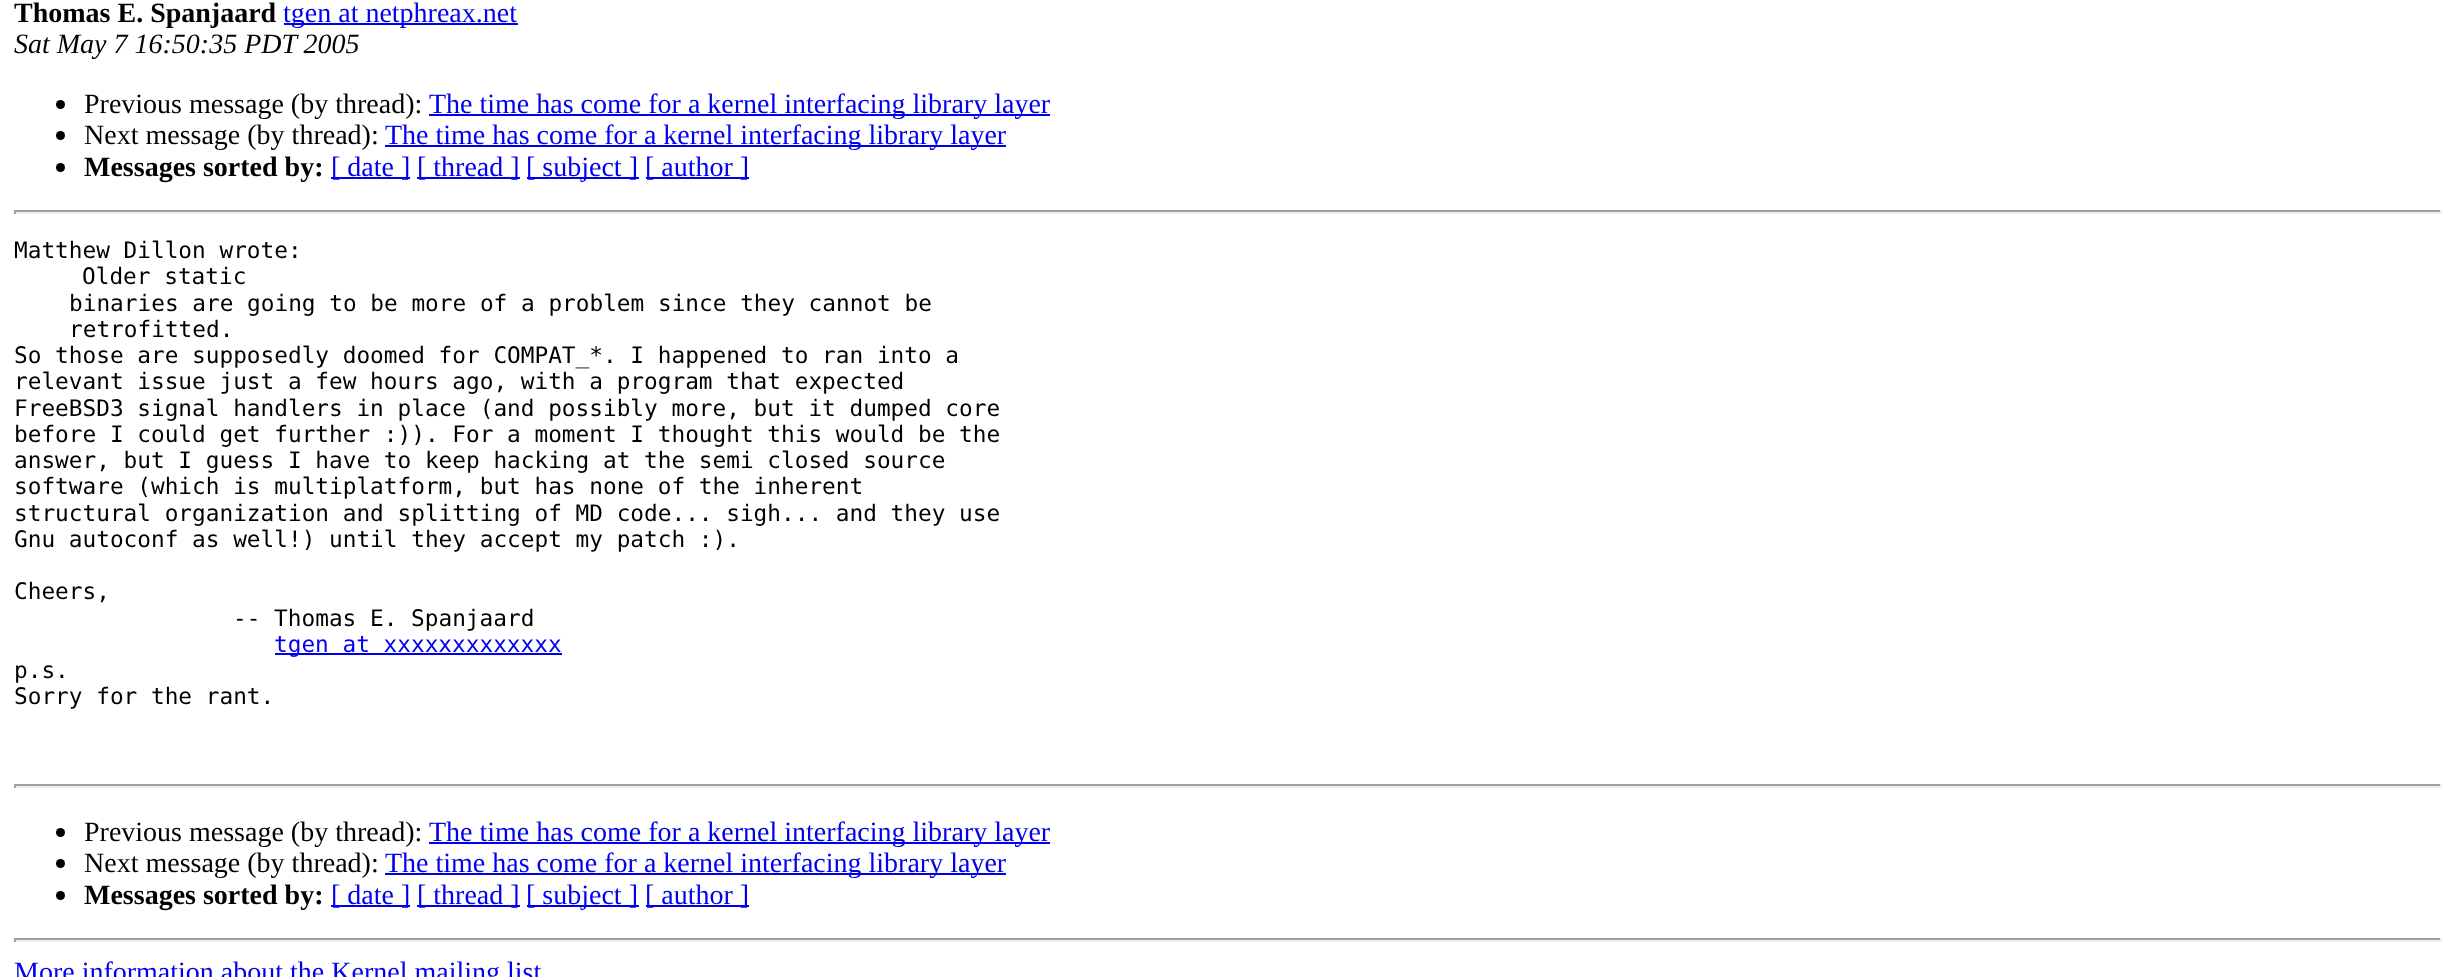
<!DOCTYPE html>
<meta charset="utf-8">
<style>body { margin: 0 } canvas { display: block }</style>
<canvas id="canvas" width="2455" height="977"></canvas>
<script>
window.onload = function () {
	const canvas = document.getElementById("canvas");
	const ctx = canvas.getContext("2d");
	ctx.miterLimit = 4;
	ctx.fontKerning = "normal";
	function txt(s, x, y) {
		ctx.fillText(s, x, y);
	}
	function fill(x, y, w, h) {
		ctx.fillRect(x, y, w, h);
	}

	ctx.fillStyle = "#FFFFFF";
	fill(0, 0, 2455, 977);
	ctx.fillStyle = "#0000EE";
	fill(284, 23, 234, 2);
	ctx.fillStyle = "#000000";
	ctx.beginPath();
	ctx.arc(60.5, 104.5, 4.5, 0, Math.PI * 2);
	ctx.fill();
	ctx.fillStyle = "#0000EE";
	fill(429, 114, 621, 2);
	ctx.fillStyle = "#000000";
	ctx.beginPath();
	ctx.arc(60.5, 135.5, 4.5, 0, Math.PI * 2);
	ctx.fill();
	ctx.fillStyle = "#0000EE";
	fill(385, 145, 621, 2);
	ctx.fillStyle = "#000000";
	ctx.beginPath();
	ctx.arc(60.5, 167.5, 4.5, 0, Math.PI * 2);
	ctx.fill();
	ctx.fillStyle = "#0000EE";
	fill(331, 177, 79, 2);
	fill(417, 177, 103, 2);
	fill(527, 177, 112, 2);
	fill(646, 177, 103, 2);
	ctx.fillStyle = "#9F9F9F";
	fill(14, 210, 2427, 2);
	ctx.fillStyle = "#EEEEEE";
	fill(2440, 210, 2, 4);
	fill(14, 212, 2427, 2);
	ctx.fillStyle = "#9F9F9F";
	fill(14, 210, 2, 4);
	ctx.fillStyle = "#0000EE";
	fill(275, 653, 287, 2);
	ctx.fillStyle = "#9F9F9F";
	fill(14, 784, 2427, 2);
	ctx.fillStyle = "#EEEEEE";
	fill(2440, 784, 2, 4);
	fill(14, 786, 2427, 2);
	ctx.fillStyle = "#9F9F9F";
	fill(14, 784, 2, 4);
	ctx.fillStyle = "#000000";
	ctx.beginPath();
	ctx.arc(60.5, 832.5, 4.5, 0, Math.PI * 2);
	ctx.fill();
	ctx.fillStyle = "#0000EE";
	fill(429, 842, 621, 2);
	ctx.fillStyle = "#000000";
	ctx.beginPath();
	ctx.arc(60.5, 863.5, 4.5, 0, Math.PI * 2);
	ctx.fill();
	ctx.fillStyle = "#0000EE";
	fill(385, 873, 621, 2);
	ctx.fillStyle = "#000000";
	ctx.beginPath();
	ctx.arc(60.5, 895.5, 4.5, 0, Math.PI * 2);
	ctx.fill();
	ctx.fillStyle = "#0000EE";
	fill(331, 905, 79, 2);
	fill(417, 905, 103, 2);
	fill(527, 905, 112, 2);
	fill(646, 905, 103, 2);
	ctx.fillStyle = "#9F9F9F";
	fill(14, 938, 2427, 2);
	ctx.fillStyle = "#EEEEEE";
	fill(2440, 938, 2, 4);
	fill(14, 940, 2427, 2);
	ctx.fillStyle = "#9F9F9F";
	fill(14, 938, 2, 4);
	ctx.font = "bold 28px Liberation Serif";
	ctx.fillStyle = "#000000";
	txt("Thomas E. Spanjaard", 14, 22);
	ctx.font = "28px Liberation Serif";
	ctx.fillStyle = "#0000EE";
	txt("tgen at netphreax.net", 283, 22);
	ctx.font = "italic 28px Liberation Serif";
	ctx.fillStyle = "#000000";
	txt("Sat May 7 16:50:35 PDT 2005", 14, 53);
	ctx.font = "28px Liberation Serif";
	txt("Previous message (by thread):", 84, 113);
	ctx.fillStyle = "#0000EE";
	txt("The time has come for a kernel interfacing library layer", 429, 113);
	ctx.fillStyle = "#000000";
	txt("Next message (by thread):", 84, 144);
	ctx.fillStyle = "#0000EE";
	txt("The time has come for a kernel interfacing library layer", 385, 144);
	ctx.font = "bold 28px Liberation Serif";
	ctx.fillStyle = "#000000";
	txt("Messages sorted by:", 84, 176);
	ctx.font = "28px Liberation Serif";
	ctx.fillStyle = "#0000EE";
	txt("[ date ]", 331, 176);
	txt("[ thread ]", 417, 176);
	txt("[ subject ]", 526, 176);
	txt("[ author ]", 645, 176);
	ctx.font = "22.75px DejaVu Sans Mono";
	ctx.fillStyle = "#000000";
	txt("Matthew Dillon wrote:", 14, 258);
	txt("Older static", 82, 284);
	txt("binaries are going to be more of a problem since they cannot be", 69, 311);
	txt("retrofitted.", 69, 337);
	txt("So those are supposedly doomed for COMPAT_*. I happened to ran into a", 14, 363);
	txt("relevant issue just a few hours ago, with a program that expected", 14, 389);
	txt("FreeBSD3 signal handlers in place (and possibly more, but it dumped core", 14, 416);
	txt("before I could get further :)). For a moment I thought this would be the", 14, 442);
	txt("answer, but I guess I have to keep hacking at the semi closed source", 14, 468);
	txt("software (which is multiplatform, but has none of the inherent", 14, 494);
	txt("structural organization and splitting of MD code... sigh... and they use", 14, 521);
	txt("Gnu autoconf as well!) until they accept my patch :).", 14, 547);
	txt("Cheers,", 14, 599);
	txt("-- Thomas E. Spanjaard", 233, 626);
	ctx.fillStyle = "#0000EE";
	txt("tgen at xxxxxxxxxxxxx", 274, 652);
	ctx.fillStyle = "#000000";
	txt("p.s.", 14, 678);
	txt("Sorry for the rant.", 14, 704);
	ctx.font = "28px Liberation Serif";
	txt("Previous message (by thread):", 84, 841);
	ctx.fillStyle = "#0000EE";
	txt("The time has come for a kernel interfacing library layer", 429, 841);
	ctx.fillStyle = "#000000";
	txt("Next message (by thread):", 84, 872);
	ctx.fillStyle = "#0000EE";
	txt("The time has come for a kernel interfacing library layer", 385, 872);
	ctx.font = "bold 28px Liberation Serif";
	ctx.fillStyle = "#000000";
	txt("Messages sorted by:", 84, 904);
	ctx.font = "28px Liberation Serif";
	ctx.fillStyle = "#0000EE";
	txt("[ date ]", 331, 904);
	txt("[ thread ]", 417, 904);
	txt("[ subject ]", 526, 904);
	txt("[ author ]", 645, 904);
	txt("More information about the Kernel mailing list", 14, 981);
};
</script>
